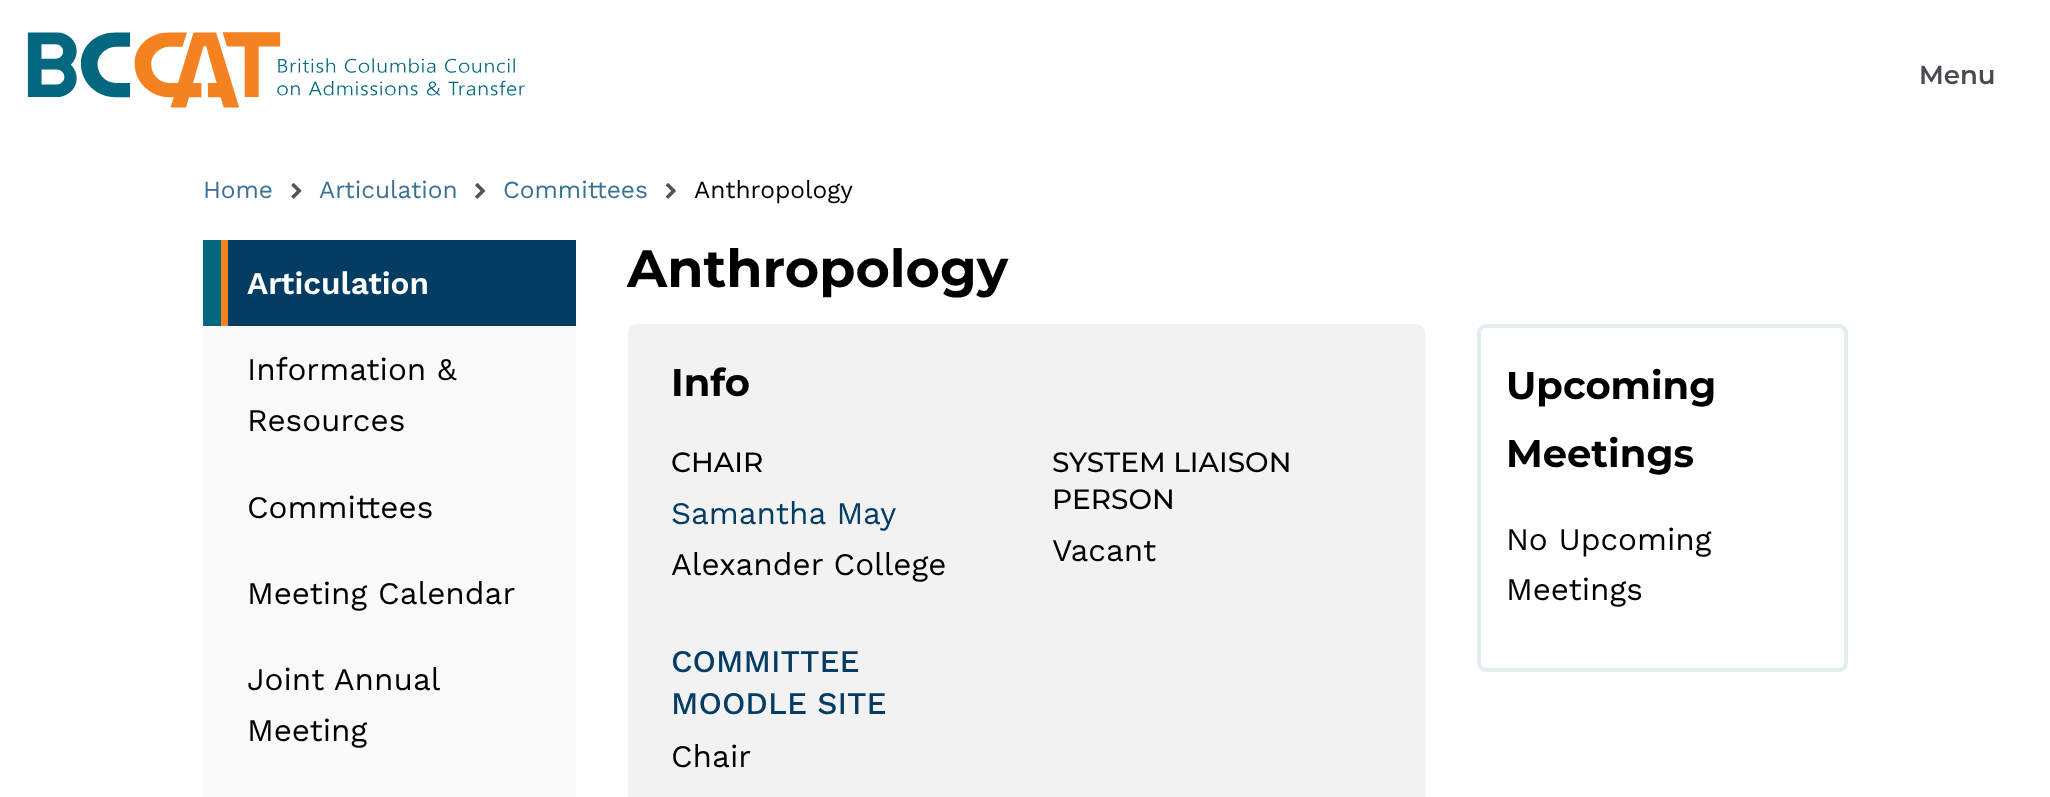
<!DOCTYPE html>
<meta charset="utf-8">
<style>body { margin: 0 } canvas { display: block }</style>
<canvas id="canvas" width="2050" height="797"></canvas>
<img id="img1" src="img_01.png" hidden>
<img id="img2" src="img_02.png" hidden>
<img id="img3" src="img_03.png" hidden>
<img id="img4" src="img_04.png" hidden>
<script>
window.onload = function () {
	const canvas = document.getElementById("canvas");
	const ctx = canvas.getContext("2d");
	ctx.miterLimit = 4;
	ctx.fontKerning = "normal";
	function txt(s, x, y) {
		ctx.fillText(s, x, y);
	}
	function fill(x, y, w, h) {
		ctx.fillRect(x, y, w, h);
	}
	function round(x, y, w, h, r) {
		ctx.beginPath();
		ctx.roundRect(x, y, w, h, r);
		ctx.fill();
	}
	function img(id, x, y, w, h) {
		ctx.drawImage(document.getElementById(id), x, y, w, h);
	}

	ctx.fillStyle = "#FFFFFF";
	fill(0, 0, 2050, 797);
	img("img1", 27, 32, 498, 76);
	img("img2", 291, 183, 11, 16);
	img("img3", 475, 183, 11, 16);
	img("img4", 665, 183, 11, 16);
	ctx.fillStyle = "#01687F";
	fill(203, 240, 18, 86);
	ctx.fillStyle = "#F58220";
	fill(221, 240, 7, 86);
	ctx.fillStyle = "#043C64";
	fill(228, 240, 348, 86);
	ctx.fillStyle = "#F9F9F9";
	fill(203, 326, 373, 471);
	ctx.fillStyle = "#F2F2F2";
	round(628, 324, 797, 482, 9);
	ctx.beginPath();
	ctx.roundRect(1479, 326, 367, 344, 7);
	ctx.strokeStyle = "#E2EEF2";
	ctx.lineWidth = 4;
	ctx.stroke();
	ctx.font = "600 26px Montserrat";
	ctx.fillStyle = "#494C4F";
	txt("Menu", 1919, 84);
	ctx.font = "24.5px Work Sans";
	ctx.fillStyle = "#3B7293";
	txt("Home", 203, 198);
	txt("Articulation", 319, 198);
	txt("Committees", 503, 198);
	ctx.fillStyle = "#000000";
	txt("Anthropology", 694, 198);
	ctx.font = "600 31.5px Work Sans";
	ctx.fillStyle = "#FFFFFF";
	txt("Articulation", 247, 294);
	ctx.font = "31.5px Work Sans";
	ctx.fillStyle = "#000000";
	txt("Information &", 247, 380);
	txt("Resources", 247, 431);
	txt("Committees", 247, 518);
	txt("Meeting Calendar", 247, 604);
	txt("Joint Annual", 247, 690);
	txt("Meeting", 247, 741);
	ctx.font = "bold 52.5px Montserrat";
	txt("Anthropology", 627, 287);
	ctx.font = "bold 38.5px Montserrat";
	txt("Info", 671, 396);
	ctx.font = "500 28px Montserrat";
	txt("CHAIR", 671, 472);
	ctx.font = "31.5px Work Sans";
	ctx.fillStyle = "#043C64";
	txt("Samantha May", 671, 524);
	ctx.fillStyle = "#000000";
	txt("Alexander College", 671, 575);
	ctx.font = "500 28px Montserrat";
	txt("SYSTEM LIAISON", 1052, 472);
	txt("PERSON", 1052, 509);
	ctx.font = "31.5px Work Sans";
	txt("Vacant", 1052, 561);
	ctx.font = "500 31.5px Work Sans";
	ctx.fillStyle = "#043C64";
	txt("COMMITTEE", 671, 672);
	txt("MOODLE SITE", 671, 714);
	ctx.font = "31.5px Work Sans";
	ctx.fillStyle = "#000000";
	txt("Chair", 671, 767);
	ctx.font = "bold 38.5px Montserrat";
	txt("Upcoming", 1506, 399);
	txt("Meetings", 1506, 467);
	ctx.font = "31.5px Work Sans";
	txt("No Upcoming", 1506, 550);
	txt("Meetings", 1506, 600);
};
</script>
